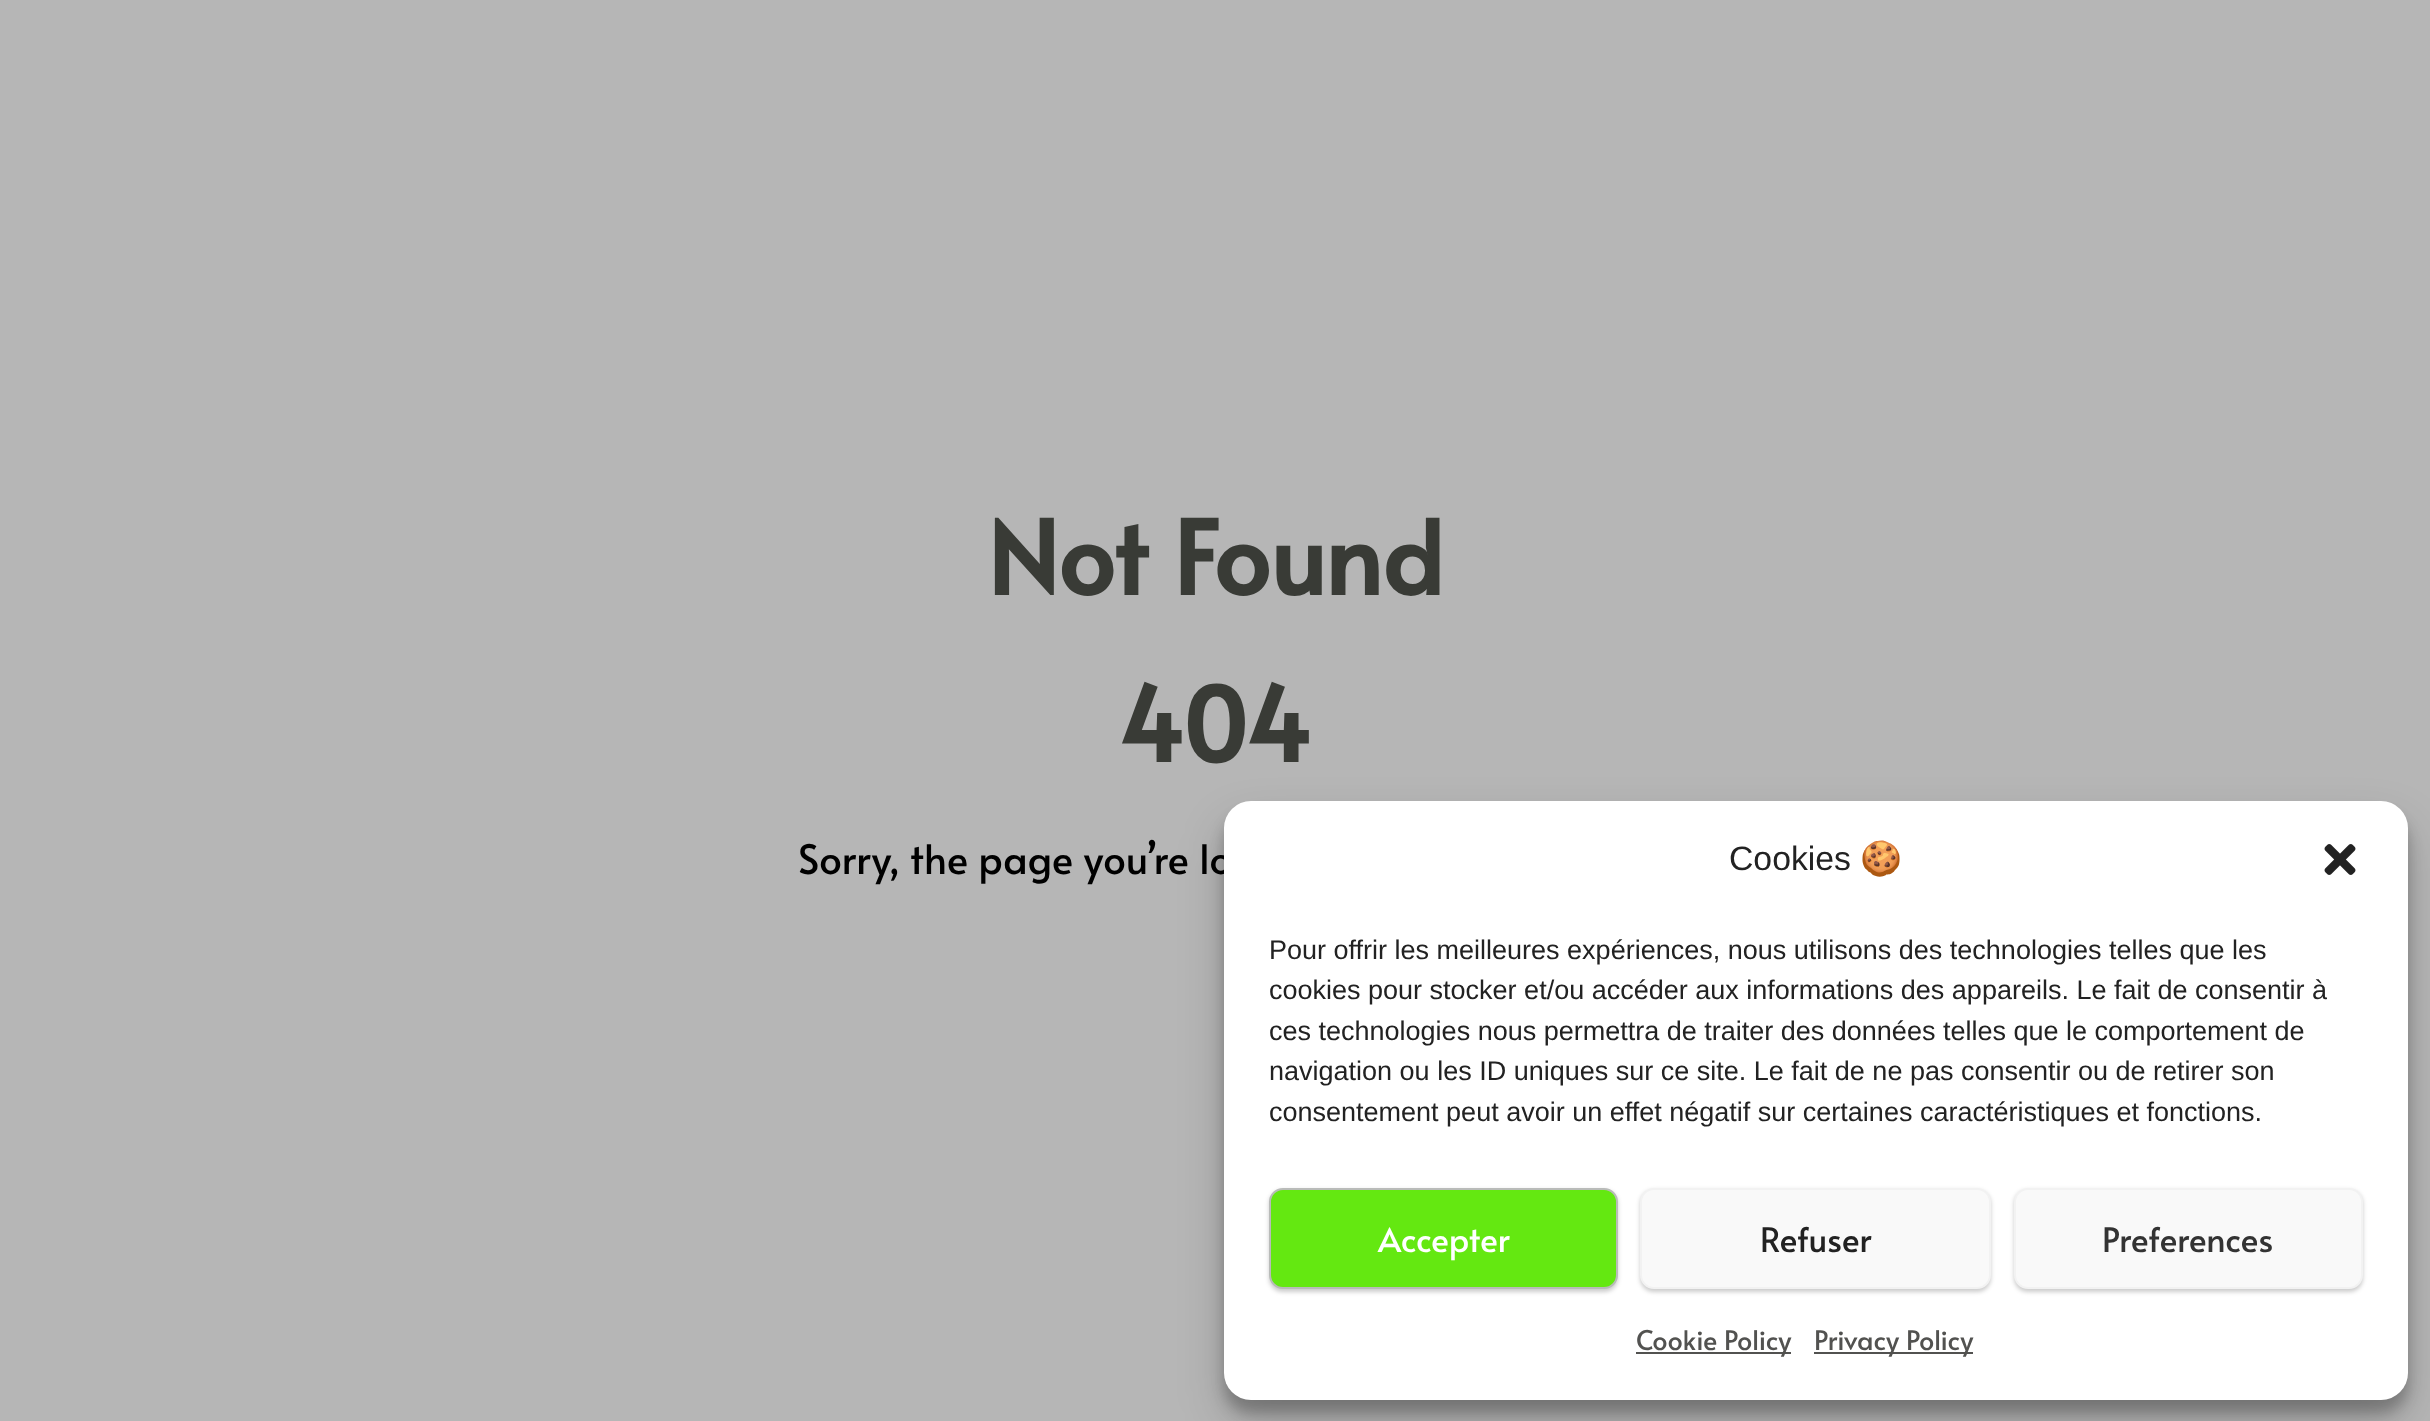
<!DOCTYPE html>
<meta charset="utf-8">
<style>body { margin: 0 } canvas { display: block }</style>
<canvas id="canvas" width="2430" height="1421"></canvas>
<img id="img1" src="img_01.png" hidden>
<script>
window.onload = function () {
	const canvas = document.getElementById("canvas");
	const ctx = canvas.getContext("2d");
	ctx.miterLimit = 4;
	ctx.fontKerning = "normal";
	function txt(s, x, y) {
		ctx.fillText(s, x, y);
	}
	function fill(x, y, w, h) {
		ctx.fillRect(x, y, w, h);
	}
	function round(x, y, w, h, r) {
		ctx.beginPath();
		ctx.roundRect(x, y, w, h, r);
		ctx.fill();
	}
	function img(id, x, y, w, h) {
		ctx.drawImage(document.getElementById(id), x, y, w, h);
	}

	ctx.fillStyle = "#B6B6B6";
	fill(0, 0, 2430, 1421);
	ctx.fillStyle = "rgba(0, 0, 0, 0.23)";
	ctx.filter = "blur(7px)";
	ctx.beginPath();
	ctx.roundRect(1224, 815, 1184, 598, 27);
	ctx.fill();
	ctx.filter = "none";
	ctx.fillStyle = "rgba(0, 0, 0, 0.19)";
	ctx.filter = "blur(22.5px)";
	ctx.beginPath();
	ctx.roundRect(1224, 824, 1184, 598, 27);
	ctx.fill();
	ctx.filter = "none";
	ctx.font = "bold 101.25px Alata";
	ctx.fillStyle = "#393B36";
	txt("Not Found", 987, 595);
	txt("404", 1118, 762);
	ctx.font = "40.5px Alata";
	ctx.fillStyle = "#000000";
	txt("Sorry, the page you’re lo", 798, 874);
	ctx.fillStyle = "#FFFFFF";
	round(1224, 801, 1184, 599, 27);
	ctx.font = "33.75px Liberation Sans";
	ctx.fillStyle = "#222222";
	txt("Cookies", 1729, 870);
	ctx.font = "33.75px Noto Color Emoji";
	txt("🍪", 1860, 870);
	img("img1", 2324, 844, 32, 31);
	ctx.font = "27px Liberation Sans";
	txt("Pour offrir les meilleures expériences, nous utilisons des technologies telles que les", 1269, 959);
	txt("cookies pour stocker et/ou accéder aux informations des appareils. Le fait de consentir à", 1269, 999);
	txt("ces technologies nous permettra de traiter des données telles que le comportement de", 1269, 1040);
	txt("navigation ou les ID uniques sur ce site. Le fait de ne pas consentir ou de retirer son", 1269, 1080);
	txt("consentement peut avoir un effet négatif sur certaines caractéristiques et fonctions.", 1269, 1121);
	ctx.fillStyle = "rgba(0, 0, 0, 0.2)";
	ctx.filter = "blur(2px)";
	ctx.beginPath();
	ctx.roundRect(1269, 1190, 349, 102, 14);
	ctx.fill();
	ctx.filter = "none";
	ctx.fillStyle = "#64E811";
	ctx.beginPath();
	ctx.roundRect(1270, 1189, 347, 99, 13);
	ctx.fill();
	ctx.strokeStyle = "#B9BBB9";
	ctx.lineWidth = 2;
	ctx.stroke();
	ctx.font = "33.75px Alata";
	ctx.fillStyle = "#FFFFFF";
	txt("Accepter", 1378, 1252);
	ctx.fillStyle = "rgba(0, 0, 0, 0.2)";
	ctx.filter = "blur(2px)";
	ctx.beginPath();
	ctx.roundRect(1640, 1190, 351, 102, 14);
	ctx.fill();
	ctx.filter = "none";
	ctx.fillStyle = "#F9F9F9";
	ctx.beginPath();
	ctx.roundRect(1641, 1189, 349, 99, 13);
	ctx.fill();
	ctx.strokeStyle = "#F2F2F2";
	ctx.stroke();
	ctx.fillStyle = "#222222";
	txt("Refuser", 1760, 1252);
	ctx.fillStyle = "rgba(0, 0, 0, 0.2)";
	ctx.filter = "blur(2px)";
	ctx.beginPath();
	ctx.roundRect(2014, 1190, 349, 102, 14);
	ctx.fill();
	ctx.filter = "none";
	ctx.fillStyle = "#F9F9F9";
	ctx.beginPath();
	ctx.roundRect(2015, 1189, 347, 99, 13);
	ctx.fill();
	ctx.stroke();
	ctx.fillStyle = "#333333";
	txt("Preferences", 2102, 1252);
	ctx.fillStyle = "#525250";
	fill(1636, 1352, 155, 2);
	ctx.font = "27px Alata";
	txt("Cookie Policy", 1636, 1350);
	fill(1814, 1352, 159, 2);
	txt("Privacy Policy", 1814, 1350);
};
</script>
